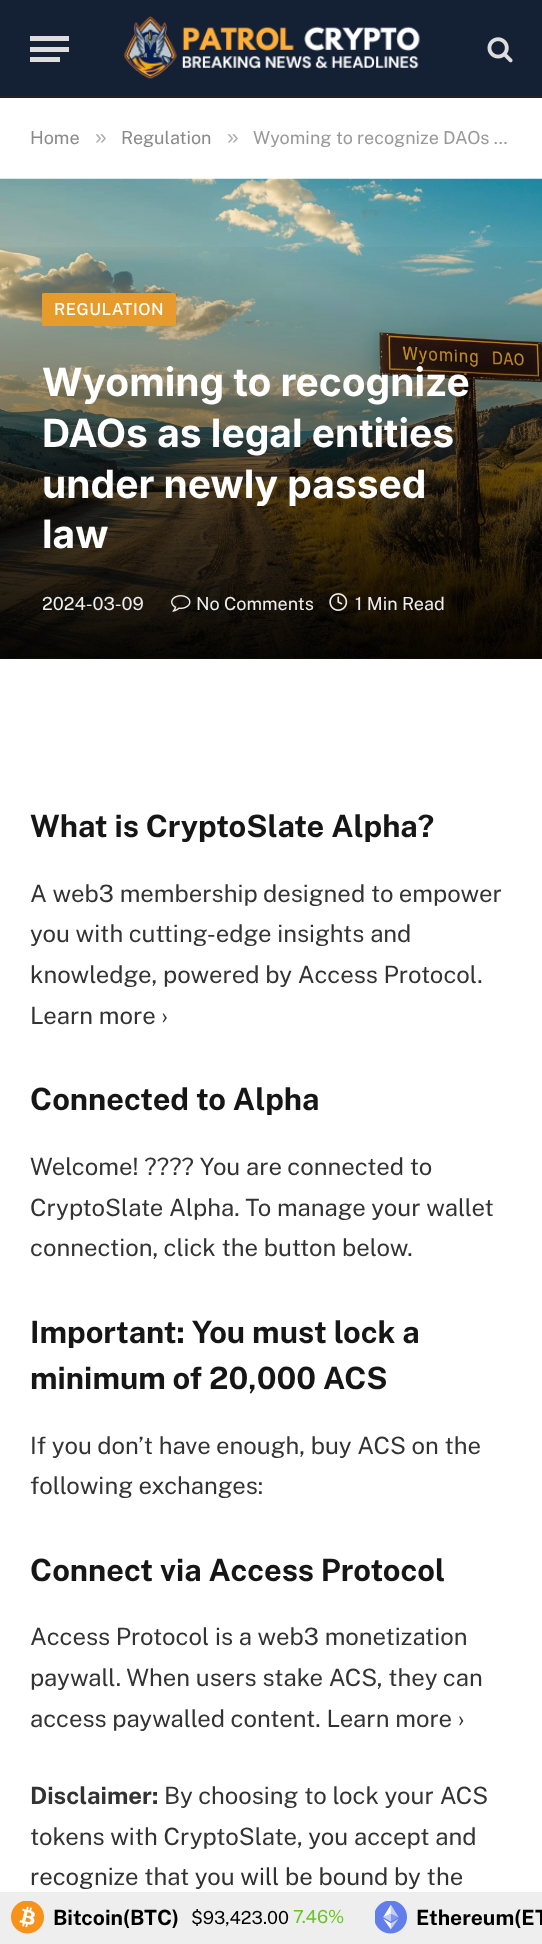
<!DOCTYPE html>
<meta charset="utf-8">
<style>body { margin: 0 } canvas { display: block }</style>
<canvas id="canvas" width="542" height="1944"></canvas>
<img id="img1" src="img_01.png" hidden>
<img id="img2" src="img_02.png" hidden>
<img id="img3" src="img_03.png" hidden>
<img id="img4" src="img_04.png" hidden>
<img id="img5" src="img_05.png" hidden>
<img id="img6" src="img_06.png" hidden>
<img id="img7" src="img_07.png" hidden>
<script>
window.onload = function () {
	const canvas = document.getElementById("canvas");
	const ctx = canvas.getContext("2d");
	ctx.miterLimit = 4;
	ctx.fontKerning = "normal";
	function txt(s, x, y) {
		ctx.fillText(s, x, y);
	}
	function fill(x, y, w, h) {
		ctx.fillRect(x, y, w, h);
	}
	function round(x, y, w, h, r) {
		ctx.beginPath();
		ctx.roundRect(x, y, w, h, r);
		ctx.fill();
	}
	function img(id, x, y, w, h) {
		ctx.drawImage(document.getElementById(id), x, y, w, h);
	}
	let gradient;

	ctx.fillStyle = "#FFFFFF";
	fill(0, 0, 542, 1944);
	ctx.fillStyle = "#142135";
	fill(0, 0, 542, 96);
	ctx.fillStyle = "#222222";
	fill(0, 96, 542, 2);
	ctx.fillStyle = "#DDDDDD";
	fill(30, 57, 30, 5);
	fill(30, 36, 39, 5);
	fill(30, 47, 39, 5);
	img("img1", 123, 16, 297, 63);
	img("img2", 487, 37, 26, 26);
	img("img3", 0, 178, 542, 481);
	gradient = ctx.createLinearGradient(271, 238, 272, 659);
	gradient.addColorStop(0, "rgba(0, 0, 0, 0)");
	gradient.addColorStop(1, "rgba(0, 0, 0, 0.95)");
	ctx.fillStyle = gradient;
	fill(0, 247, 542, 412);
	ctx.fillStyle = "#E89B2D";
	round(42, 293, 134, 33, 1.5);
	img("img4", 171, 595, 20, 17);
	img("img5", 329, 593, 19, 18);
	ctx.fillStyle = "#EEEEEE";
	fill(0, 1892, 542, 52);
	img("img6", 11, 1901, 33, 33);
	img("img7", 375, 1901, 32, 33);
	ctx.font = "18px Public Sans";
	ctx.fillStyle = "#8A8A8A";
	txt("Home", 30, 144);
	ctx.font = "21px Liberation Sans";
	ctx.fillStyle = "#ADADAD";
	txt("»", 95, 144);
	ctx.font = "18px Public Sans";
	ctx.fillStyle = "#8A8A8A";
	txt("Regulation", 121, 144);
	ctx.font = "21px Liberation Sans";
	ctx.fillStyle = "#ADADAD";
	txt("»", 227, 144);
	ctx.font = "18px Public Sans";
	ctx.fillStyle = "#999999";
	txt("Wyoming to recognize DAOs …", 253, 144);
	ctx.letterSpacing = "0.5px";
	ctx.font = "500 16.5px Public Sans";
	ctx.fillStyle = "#FFFFFF";
	txt("REGULATION", 54, 315);
	ctx.letterSpacing = "0px";
	ctx.font = "bold 39px Inter";
	txt("Wyoming to recognize", 42, 396);
	txt("DAOs as legal entities", 42, 447);
	txt("under newly passed", 42, 498);
	txt("law", 42, 548);
	ctx.font = "18px Public Sans";
	ctx.fillStyle = "#EEEEEE";
	txt("2024-03-09", 42, 610);
	txt("No Comments", 196, 610);
	txt("1 Min Read", 355, 610);
	ctx.font = "bold 30.75px Public Sans";
	ctx.fillStyle = "#161616";
	txt("What is CryptoSlate Alpha?", 30, 837);
	ctx.font = "23.9px Public Sans";
	ctx.fillStyle = "#333333";
	txt("A web3 membership designed to empower", 30, 902);
	txt("you with cutting-edge insights and", 30, 942);
	txt("knowledge, powered by Access Protocol.", 30, 983);
	txt("Learn more ›", 30, 1024);
	ctx.font = "bold 30.75px Public Sans";
	ctx.fillStyle = "#161616";
	txt("Connected to Alpha", 30, 1110);
	ctx.font = "23.9px Public Sans";
	ctx.fillStyle = "#333333";
	txt("Welcome! ???? You are connected to", 30, 1175);
	txt("CryptoSlate Alpha. To manage your wallet", 30, 1216);
	txt("connection, click the button below.", 30, 1256);
	ctx.font = "bold 30.75px Public Sans";
	ctx.fillStyle = "#161616";
	txt("Important: You must lock a", 30, 1343);
	txt("minimum of 20,000 ACS", 30, 1389);
	ctx.font = "23.9px Public Sans";
	ctx.fillStyle = "#333333";
	txt("If you don’t have enough, buy ACS on the", 30, 1454);
	txt("following exchanges:", 30, 1494);
	ctx.font = "bold 30.75px Public Sans";
	ctx.fillStyle = "#161616";
	txt("Connect via Access Protocol", 30, 1581);
	ctx.font = "23.9px Public Sans";
	ctx.fillStyle = "#333333";
	txt("Access Protocol is a web3 monetization", 30, 1645);
	txt("paywall. When users stake ACS, they can", 30, 1686);
	txt("access paywalled content. Learn more ›", 30, 1727);
	ctx.font = "bold 23.9px Public Sans";
	txt("Disclaimer:", 30, 1804);
	ctx.font = "23.9px Public Sans";
	txt("By choosing to lock your ACS", 164, 1804);
	txt("tokens with CryptoSlate, you accept and", 30, 1845);
	txt("recognize that you will be bound by the", 30, 1885);
	ctx.font = "bold 21px Public Sans";
	ctx.fillStyle = "#000000";
	txt("Bitcoin(BTC)", 53, 1925);
	ctx.font = "18px Public Sans";
	txt("$93,423.00", 191, 1924);
	ctx.fillStyle = "#67C624";
	txt("7.46%", 293, 1923);
	ctx.font = "bold 21px Public Sans";
	ctx.fillStyle = "#000000";
	txt("Ethereum(ET", 416, 1925);
};
</script>
